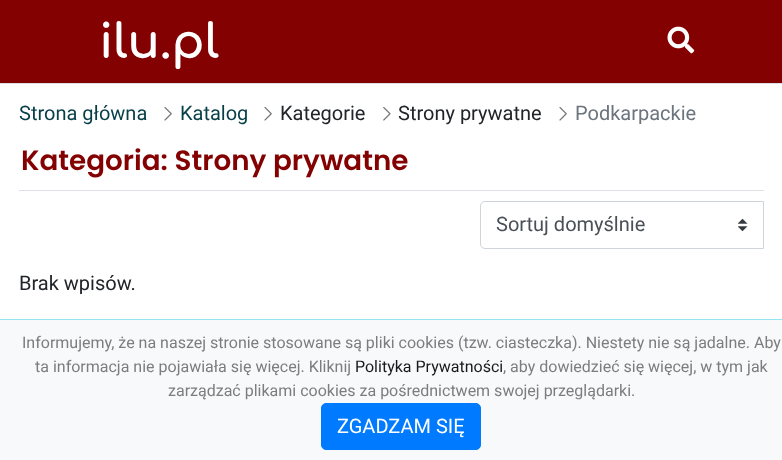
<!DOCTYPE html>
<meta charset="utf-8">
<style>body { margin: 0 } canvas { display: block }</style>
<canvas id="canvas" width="782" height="460"></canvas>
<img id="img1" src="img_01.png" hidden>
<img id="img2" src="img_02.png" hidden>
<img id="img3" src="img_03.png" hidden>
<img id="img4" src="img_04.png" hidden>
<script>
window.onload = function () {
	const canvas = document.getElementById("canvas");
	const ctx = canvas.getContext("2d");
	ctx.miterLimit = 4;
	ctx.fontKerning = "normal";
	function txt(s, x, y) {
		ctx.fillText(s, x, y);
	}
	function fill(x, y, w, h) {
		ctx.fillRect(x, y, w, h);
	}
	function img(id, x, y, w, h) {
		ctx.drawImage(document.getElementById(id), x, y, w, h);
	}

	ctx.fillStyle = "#FFFFFF";
	fill(0, 0, 782, 460);
	ctx.fillStyle = "#840101";
	fill(0, 0, 782, 83);
	ctx.fillStyle = "#DEE2E6";
	fill(0, 83, 782, 1);
	img("img1", 667, 26, 28, 28);
	img("img2", 164, 107, 8, 14);
	img("img2", 264, 107, 8, 14);
	img("img3", 383, 106, 8, 15);
	img("img2", 559, 107, 8, 14);
	fill(19, 190, 745, 1);
	img("img4", 738, 219, 10, 12);
	ctx.beginPath();
	ctx.roundRect(480.5, 201.5, 283, 47, [4.5, 0, 0, 4.5]);
	ctx.strokeStyle = "#CED4DA";
	ctx.stroke();
	ctx.fillStyle = "#F8F9FA";
	fill(0, 320, 782, 140);
	ctx.fillStyle = "#93E5F2";
	fill(0, 319, 782, 1);
	ctx.fillStyle = "#007BFF";
	ctx.beginPath();
	ctx.roundRect(321.5, 403.5, 159, 46, 4.5);
	ctx.fill();
	ctx.strokeStyle = "#007BFF";
	ctx.stroke();
	ctx.font = "bold 47.5px Comfortaa";
	ctx.fillStyle = "#FFFFFF";
	txt("ilu.pl", 99, 58);
	ctx.font = "20px Roboto";
	ctx.fillStyle = "#073F48";
	txt("Strona główna", 19, 120);
	txt("Katalog", 180, 120);
	ctx.fillStyle = "#212529";
	txt("Kategorie", 280, 120);
	txt("Strony prywatne", 398, 120);
	ctx.fillStyle = "#6C757D";
	txt("Podkarpackie", 575, 120);
	ctx.font = "600 27.8px Poppins";
	ctx.fillStyle = "#840101";
	txt("Kategoria: Strony prywatne", 21, 170);
	ctx.font = "20px Roboto";
	ctx.fillStyle = "#495057";
	txt("Sortuj domyślnie", 496, 231);
	ctx.fillStyle = "#212529";
	txt("Brak wpisów.", 19, 290);
	ctx.font = "16px Roboto";
	ctx.fillStyle = "#7C7D7D";
	txt("Informujemy, że na naszej stronie stosowane są pliki cookies (tzw. ciasteczka). Niestety nie są jadalne. Aby", 22, 348);
	txt("ta informacja nie pojawiała się więcej. Kliknij", 35, 372);
	ctx.fillStyle = "#191919";
	txt("Polityka Prywatności", 355, 372);
	ctx.fillStyle = "#7C7D7D";
	txt(", aby dowiedzieć się więcej, w tym jak", 503, 372);
	txt("zarządzać plikami cookies za pośrednictwem swojej przeglądarki.", 168, 396);
	ctx.font = "20px Roboto";
	ctx.fillStyle = "#FFFFFF";
	txt("ZGADZAM SIĘ", 337, 433);
};
</script>
